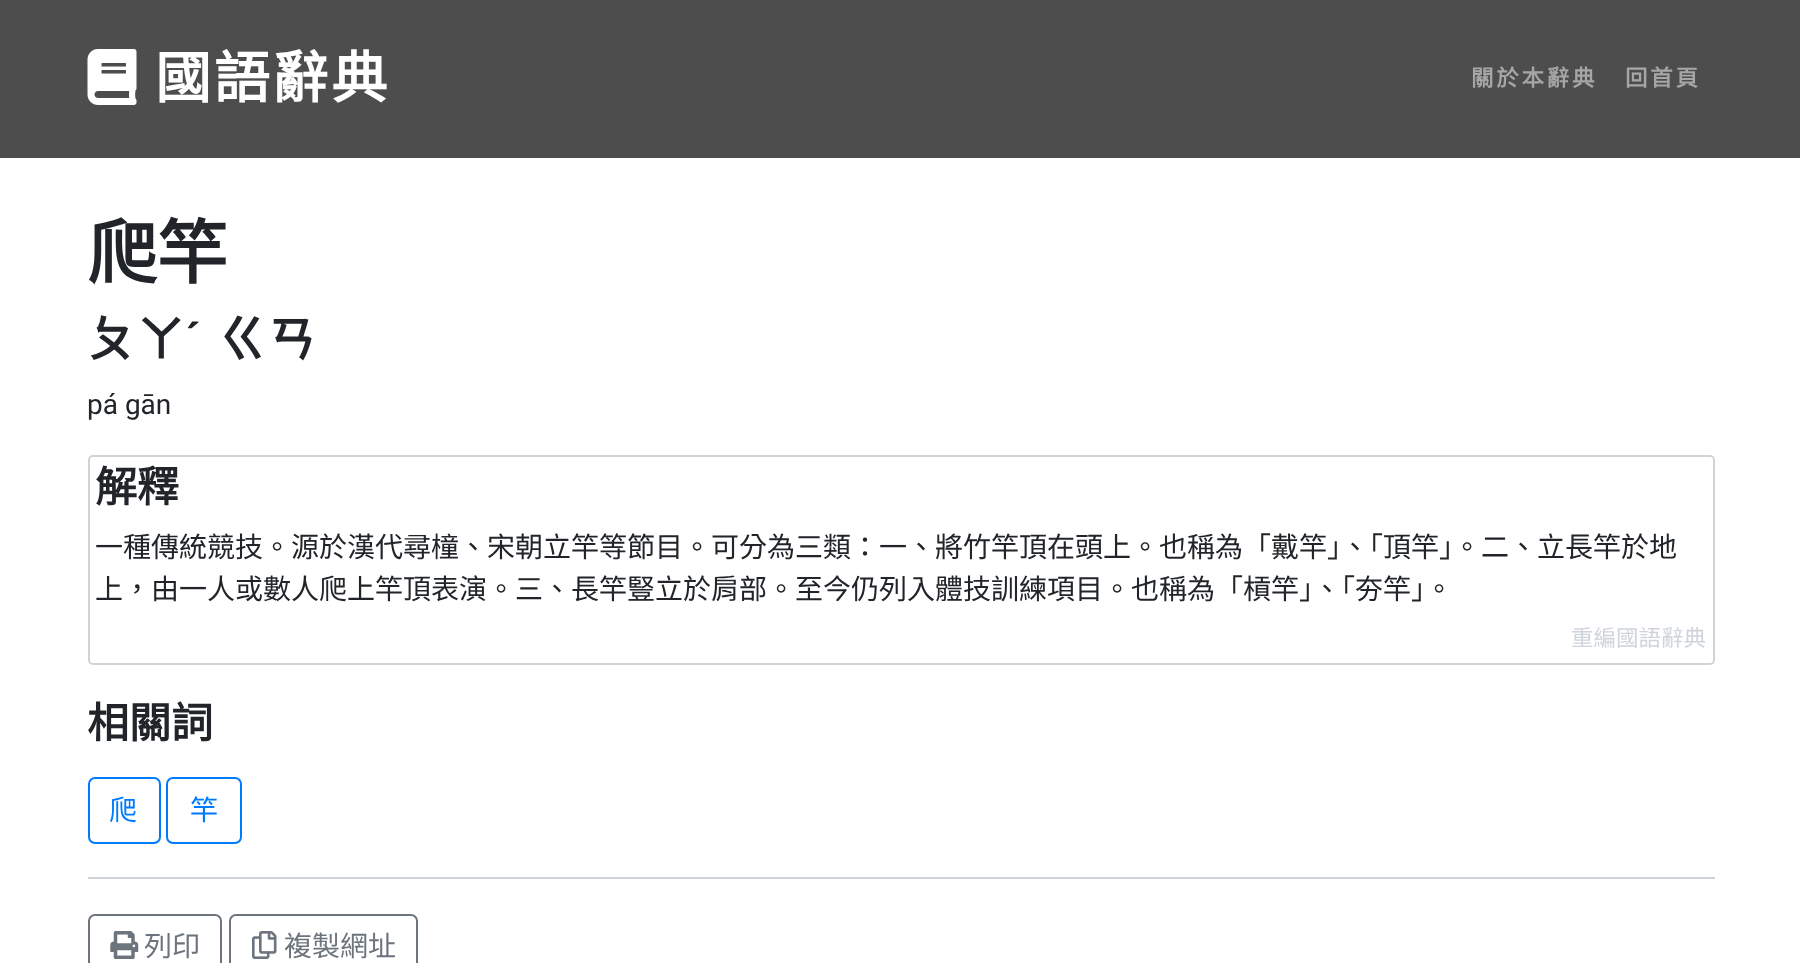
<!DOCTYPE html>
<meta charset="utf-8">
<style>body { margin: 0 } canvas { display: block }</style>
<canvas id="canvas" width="1800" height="963"></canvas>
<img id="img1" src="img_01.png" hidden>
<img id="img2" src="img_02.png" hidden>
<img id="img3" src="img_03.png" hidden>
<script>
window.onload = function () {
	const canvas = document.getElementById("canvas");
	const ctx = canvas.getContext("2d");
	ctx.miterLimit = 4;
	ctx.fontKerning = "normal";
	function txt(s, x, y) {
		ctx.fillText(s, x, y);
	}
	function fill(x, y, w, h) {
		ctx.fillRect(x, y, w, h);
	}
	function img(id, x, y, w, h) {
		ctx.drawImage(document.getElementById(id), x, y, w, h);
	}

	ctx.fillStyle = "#FFFFFF";
	fill(0, 0, 1800, 963);
	ctx.fillStyle = "#4D4D4D";
	fill(0, 0, 1800, 158);
	img("img1", 87, 49, 50, 56);
	ctx.beginPath();
	ctx.roundRect(89, 456, 1625, 208, 4);
	ctx.strokeStyle = "#CED4DA";
	ctx.lineWidth = 2;
	ctx.stroke();
	ctx.beginPath();
	ctx.roundRect(89, 778, 71, 65, 6);
	ctx.strokeStyle = "#007BFF";
	ctx.stroke();
	ctx.beginPath();
	ctx.roundRect(167, 778, 74, 65, 6);
	ctx.stroke();
	ctx.fillStyle = "#CED4DA";
	fill(88, 877, 1627, 2);
	ctx.beginPath();
	ctx.roundRect(89, 915, 132, 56, 6);
	ctx.strokeStyle = "#6C757D";
	ctx.stroke();
	img("img2", 110, 931, 29, 28);
	ctx.beginPath();
	ctx.roundRect(230, 915, 187, 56, 6);
	ctx.stroke();
	img("img3", 252, 931, 25, 28);
	ctx.letterSpacing = "2.75px";
	ctx.font = "bold 56px Noto Sans CJK TC";
	ctx.fillStyle = "#FFFFFF";
	txt("國語辭典", 155, 98);
	ctx.font = "bold 22.5px Noto Sans CJK TC";
	ctx.fillStyle = "#A6A6A6";
	txt("關於本辭典", 1471, 86);
	txt("回首頁", 1625, 86);
	ctx.letterSpacing = "0px";
	ctx.font = "bold 70px Noto Sans CJK TC";
	ctx.fillStyle = "#212529";
	txt("爬竿", 87, 278);
	ctx.font = "bold 49px Noto Sans CJK TC";
	txt("ㄆㄚ", 87, 357);
	ctx.font = "bold 49px Liberation Sans";
	txt("ˊ", 185, 357);
	ctx.font = "bold 49px Noto Sans CJK TC";
	txt("ㄍㄢ", 218, 357);
	ctx.font = "28px Roboto";
	txt("pá gān", 87, 414);
	ctx.font = "bold 42px Noto Sans CJK TC";
	txt("解釋", 95, 502);
	ctx.font = "28px Noto Sans CJK TC";
	txt("一種傳統競技。源於漢代尋橦、宋朝立竿等節目。可分為三類：一、將竹竿頂在頭上。也稱為「戴竿」、「頂竿」。二、立長竿於地", 95, 557);
	txt("上，由一人或數人爬上竿頂表演。三、長竿豎立於肩部。至今仍列入體技訓練項目。也稱為「槓竿」、「夯竿」。", 95, 599);
	ctx.font = "22.5px Noto Sans CJK TC";
	ctx.fillStyle = "#CED4DA";
	txt("重編國語辭典", 1571, 646);
	ctx.font = "bold 42px Noto Sans CJK TC";
	ctx.fillStyle = "#212529";
	txt("相關詞", 87, 738);
	ctx.font = "28px Noto Sans CJK TC";
	ctx.fillStyle = "#007BFF";
	txt("爬", 109, 820);
	txt("竿", 190, 820);
	ctx.fillStyle = "#6C757D";
	txt("列印", 144, 956);
	txt("複製網址", 284, 956);
};
</script>
